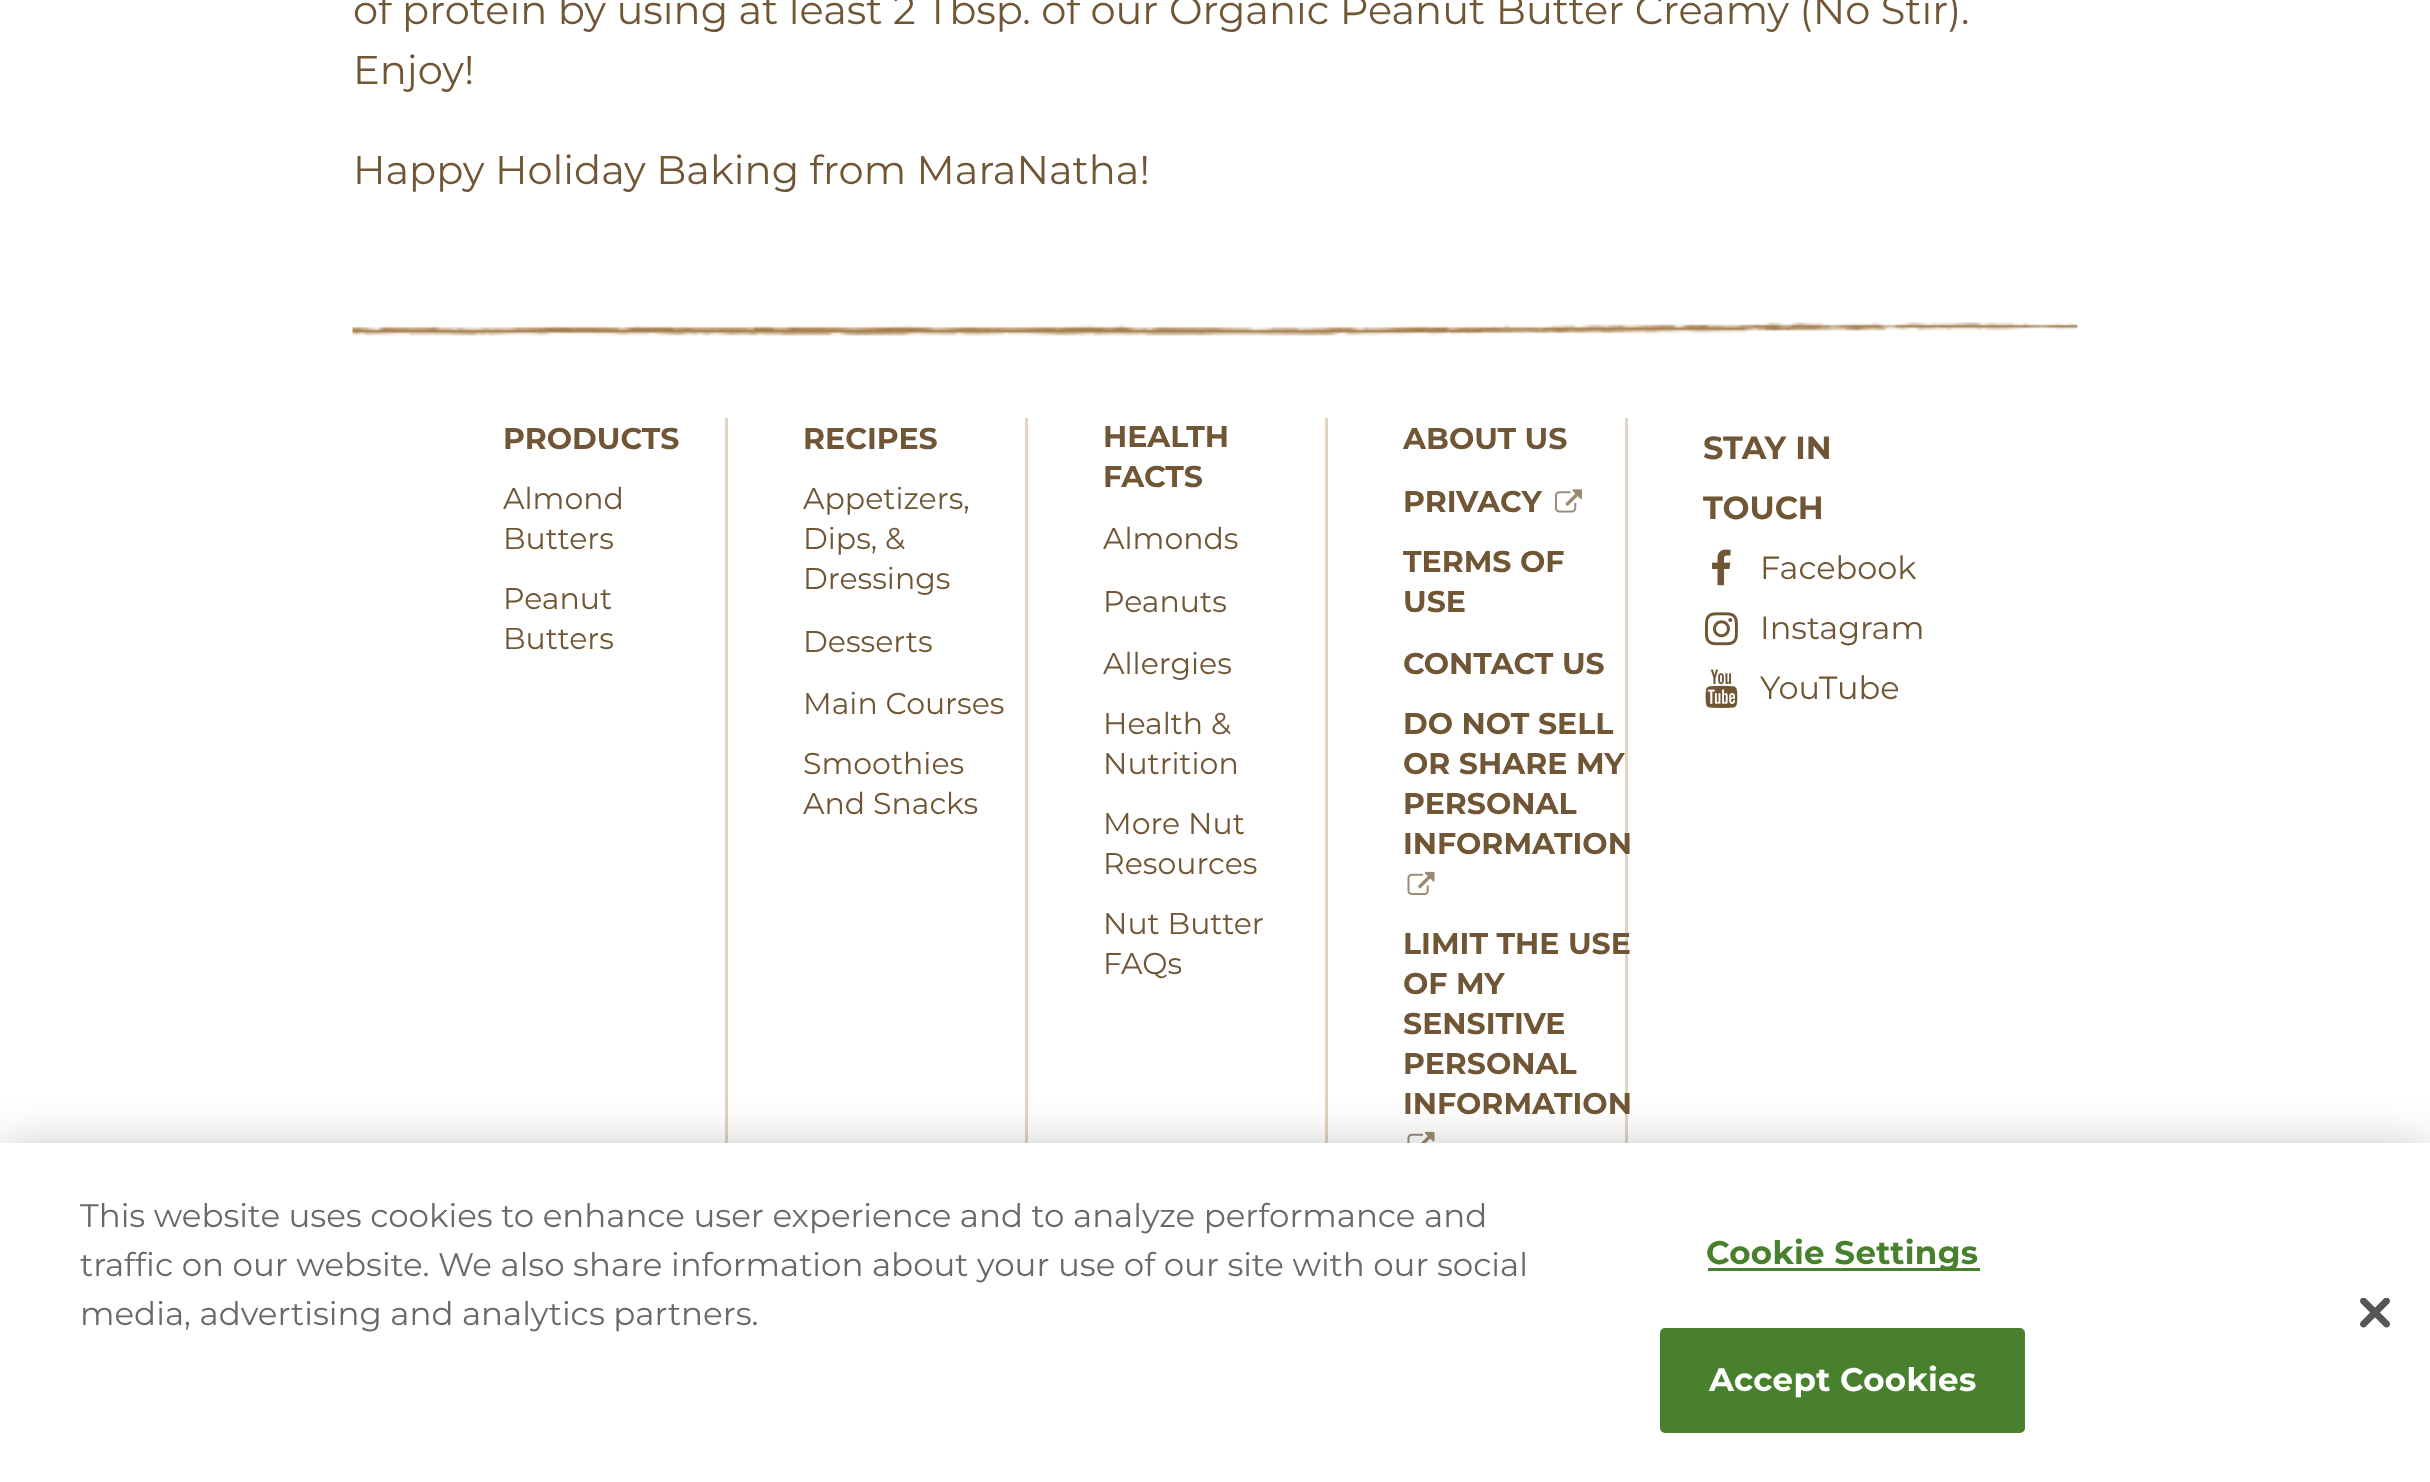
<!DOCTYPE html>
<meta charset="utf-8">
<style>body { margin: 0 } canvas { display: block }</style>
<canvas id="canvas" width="2430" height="1482"></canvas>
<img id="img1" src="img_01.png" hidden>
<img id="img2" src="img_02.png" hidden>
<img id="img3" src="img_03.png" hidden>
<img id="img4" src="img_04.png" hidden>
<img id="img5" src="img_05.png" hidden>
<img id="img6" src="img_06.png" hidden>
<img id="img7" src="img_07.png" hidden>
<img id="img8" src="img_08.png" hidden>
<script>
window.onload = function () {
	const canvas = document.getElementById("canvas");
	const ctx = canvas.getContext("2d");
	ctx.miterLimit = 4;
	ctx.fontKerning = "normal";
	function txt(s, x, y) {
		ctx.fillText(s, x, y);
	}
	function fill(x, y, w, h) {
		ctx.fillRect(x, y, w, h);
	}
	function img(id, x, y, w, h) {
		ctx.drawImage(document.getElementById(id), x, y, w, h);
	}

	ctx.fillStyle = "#FFFFFF";
	fill(0, 0, 2430, 1482);
	img("img1", 352, 322, 1726, 14);
	ctx.fillStyle = "#E0D3C1";
	fill(725, 418, 3, 725);
	fill(1025, 418, 3, 725);
	fill(1325, 418, 3, 725);
	fill(1625, 418, 3, 725);
	img("img2", 1555, 489, 27, 24);
	img("img3", 1407, 871, 28, 24);
	img("img4", 1407, 1131, 28, 12);
	img("img5", 1712, 549, 19, 37);
	img("img6", 1705, 612, 33, 34);
	img("img7", 1705, 669, 33, 39);
	ctx.fillStyle = "rgba(0, 0, 0, 0.2)";
	ctx.filter = "blur(22.5px)";
	ctx.beginPath();
	ctx.rect(0, 1143, 2430, 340);
	ctx.fill();
	ctx.filter = "none";
	ctx.fillStyle = "#FFFFFF";
	fill(0, 1143, 2430, 339);
	ctx.fillStyle = "#49802D";
	fill(1708, 1268, 272, 3);
	ctx.beginPath();
	ctx.roundRect(1661.5, 1329.5, 362, 102, 3.5);
	ctx.fill();
	ctx.strokeStyle = "#49802D";
	ctx.lineWidth = 3;
	ctx.stroke();
	img("img8", 2360, 1298, 30, 30);
	ctx.font = "40px Montserrat";
	ctx.fillStyle = "#705635";
	txt("of protein by using at least 2 Tbsp. of our Organic Peanut Butter Creamy (No Stir).", 353, 24);
	txt("Enjoy!", 353, 84);
	txt("Happy Holiday Baking from MaraNatha!", 353, 184);
	ctx.font = "bold 30px Montserrat";
	txt("PRODUCTS", 503, 449);
	ctx.font = "30px Montserrat";
	txt("Almond", 503, 509);
	txt("Butters", 503, 549);
	txt("Peanut", 503, 609);
	txt("Butters", 503, 649);
	ctx.font = "bold 30px Montserrat";
	txt("RECIPES", 803, 449);
	ctx.font = "30px Montserrat";
	txt("Appetizers,", 803, 509);
	txt("Dips, &", 803, 549);
	txt("Dressings", 803, 589);
	txt("Desserts", 803, 652);
	txt("Main Courses", 803, 714);
	txt("Smoothies", 803, 774);
	txt("And Snacks", 803, 814);
	ctx.font = "bold 30px Montserrat";
	txt("HEALTH", 1103, 447);
	txt("FACTS", 1103, 487);
	ctx.font = "30px Montserrat";
	txt("Almonds", 1103, 549);
	txt("Peanuts", 1103, 612);
	txt("Allergies", 1103, 674);
	txt("Health &", 1103, 734);
	txt("Nutrition", 1103, 774);
	txt("More Nut", 1103, 834);
	txt("Resources", 1103, 874);
	txt("Nut Butter", 1103, 934);
	txt("FAQs", 1103, 974);
	ctx.font = "bold 30px Montserrat";
	txt("ABOUT US", 1403, 449);
	txt("PRIVACY", 1403, 512);
	txt("TERMS OF", 1403, 572);
	txt("USE", 1403, 612);
	txt("CONTACT US", 1403, 674);
	txt("DO NOT SELL", 1403, 734);
	txt("OR SHARE MY", 1403, 774);
	txt("PERSONAL", 1403, 814);
	txt("INFORMATION", 1403, 854);
	txt("LIMIT THE USE", 1403, 954);
	txt("OF MY", 1403, 994);
	txt("SENSITIVE", 1403, 1034);
	txt("PERSONAL", 1403, 1074);
	txt("INFORMATION", 1403, 1114);
	ctx.font = "bold 32px Montserrat";
	txt("STAY IN", 1703, 459);
	txt("TOUCH", 1703, 519);
	ctx.font = "32px Montserrat";
	txt("Facebook", 1760, 579);
	txt("Instagram", 1760, 639);
	txt("YouTube", 1760, 699);
	ctx.font = "32.5px Montserrat";
	ctx.fillStyle = "#696969";
	txt("This website uses cookies to enhance user experience and to analyze performance and", 80, 1227);
	txt("traffic on our website. We also share information about your use of our site with our social", 80, 1276);
	txt("media, advertising and analytics partners.", 80, 1325);
	ctx.letterSpacing = "0.3px";
	ctx.font = "bold 32.5px Montserrat";
	ctx.fillStyle = "#49802D";
	txt("Cookie Settings", 1706, 1264);
	ctx.fillStyle = "#FFFFFF";
	txt("Accept Cookies", 1709, 1391);
};
</script>
